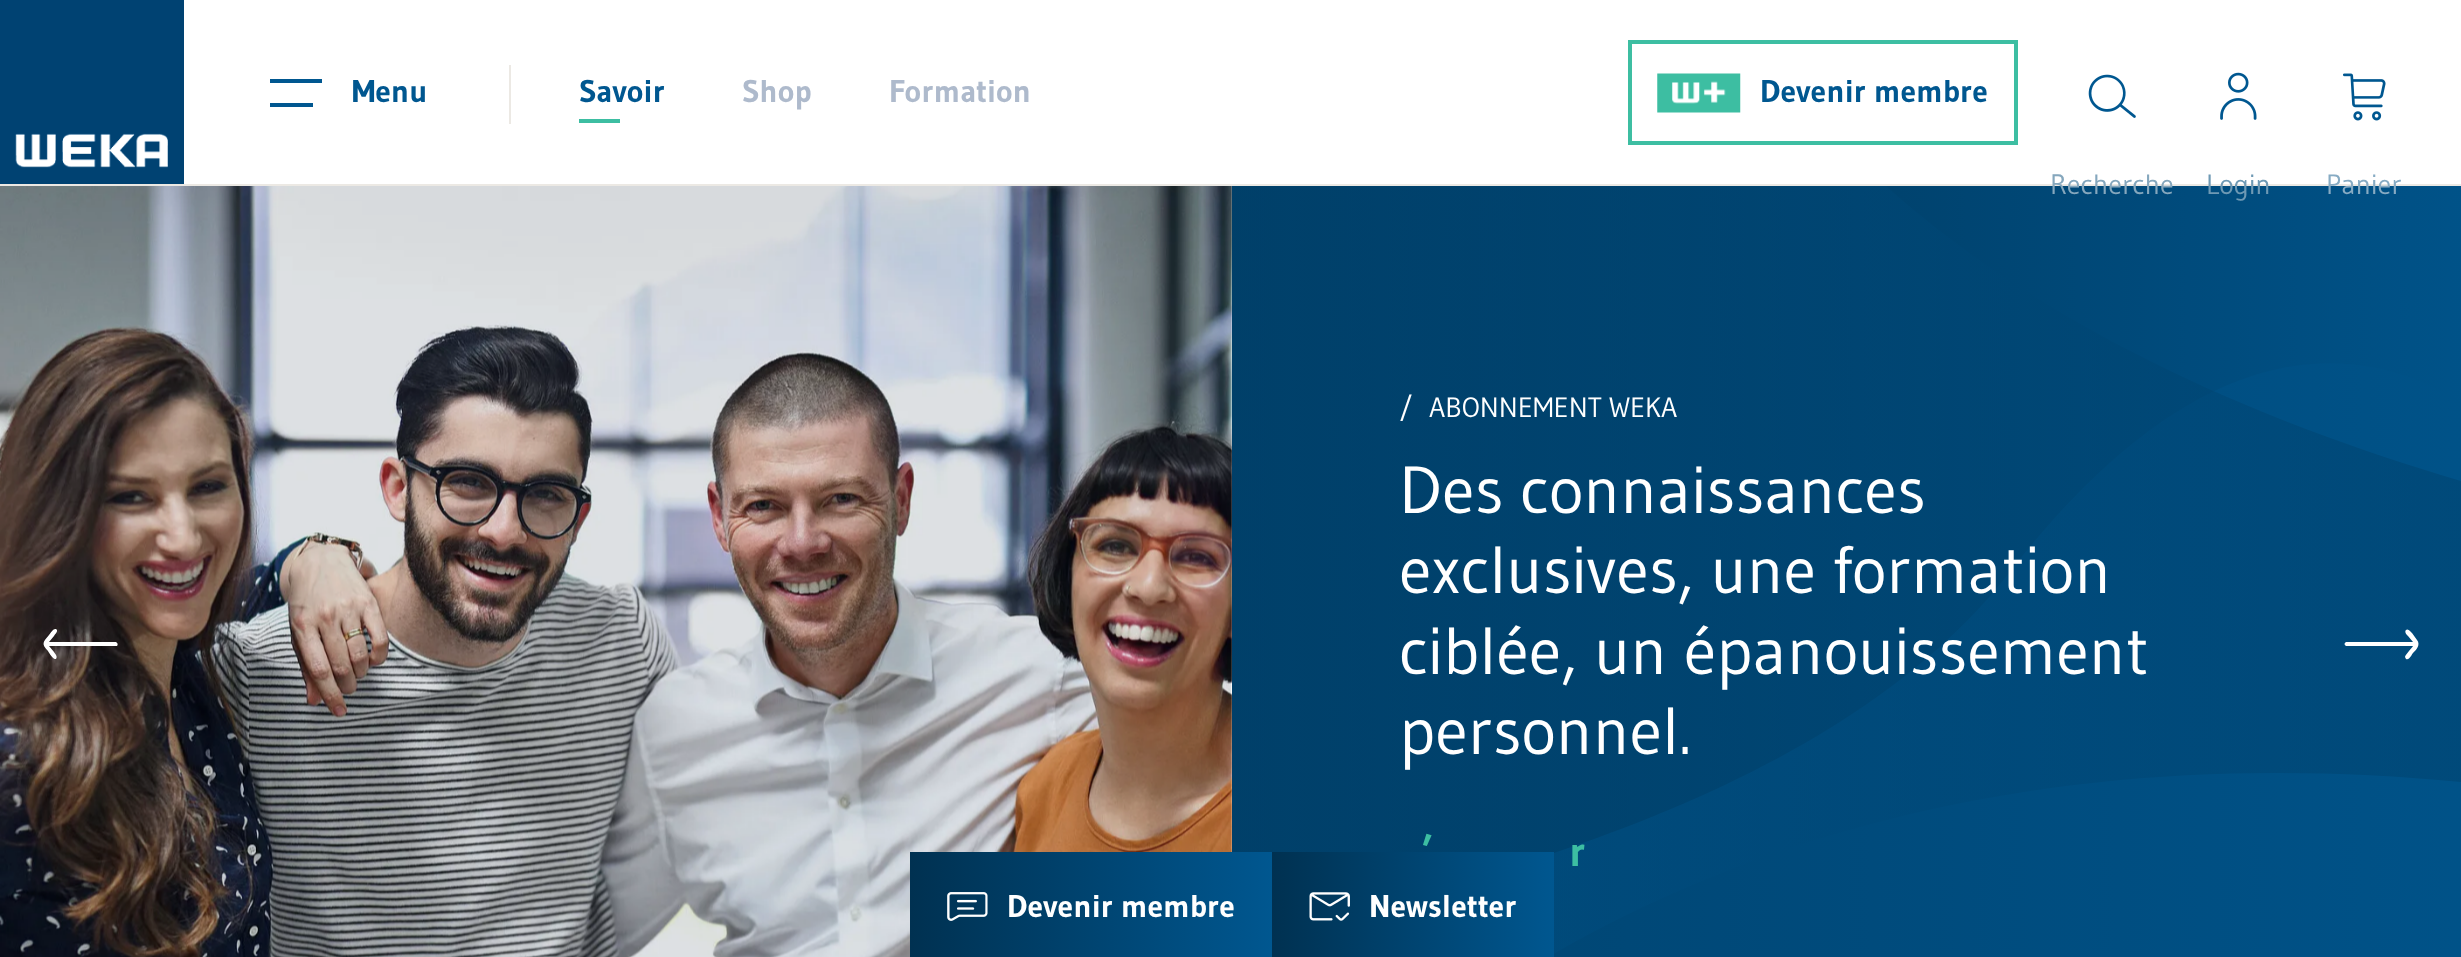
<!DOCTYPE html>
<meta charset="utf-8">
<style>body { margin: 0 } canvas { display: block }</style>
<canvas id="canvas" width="2461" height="957"></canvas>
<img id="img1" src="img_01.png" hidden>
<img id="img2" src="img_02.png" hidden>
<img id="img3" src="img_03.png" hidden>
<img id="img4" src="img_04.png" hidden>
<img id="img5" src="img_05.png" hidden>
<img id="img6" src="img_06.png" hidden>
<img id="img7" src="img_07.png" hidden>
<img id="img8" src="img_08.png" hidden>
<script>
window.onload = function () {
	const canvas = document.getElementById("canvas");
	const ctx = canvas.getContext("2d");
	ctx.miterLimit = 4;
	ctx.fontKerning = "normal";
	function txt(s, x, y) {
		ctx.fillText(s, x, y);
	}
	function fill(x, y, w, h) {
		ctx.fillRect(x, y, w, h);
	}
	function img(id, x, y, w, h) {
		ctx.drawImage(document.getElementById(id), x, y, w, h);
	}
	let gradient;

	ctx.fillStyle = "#FFFFFF";
	fill(0, 0, 2461, 957);
	ctx.fillStyle = "#ECE9E4";
	fill(0, 184, 2461, 2);
	img("img1", 0, 0, 184, 184);
	ctx.fillStyle = "#005790";
	fill(270, 79, 52, 4);
	fill(270, 103, 43, 4);
	ctx.fillStyle = "#ECE9E4";
	fill(509, 65, 2, 59);
	ctx.fillStyle = "#3DBEA2";
	fill(579, 119, 41, 4);
	ctx.strokeStyle = "#3DBEA2";
	ctx.lineWidth = 4;
	ctx.strokeRect(1630, 42, 386, 101);
	img("img2", 1657, 73, 84, 40);
	img("img3", 2088, 74, 48, 44);
	img("img4", 2220, 72, 37, 48);
	img("img5", 2343, 73, 43, 48);
	img("img6", 0, 186, 1232, 771);
	ctx.fillStyle = "#FFFFFF";
	ctx.beginPath();
	ctx.moveTo(55, 659);
	ctx.bezierCurveTo(53, 659, 49, 653, 48, 651);
	ctx.bezierCurveTo(41, 644, 43, 642, 49, 635);
	ctx.bezierCurveTo(50, 634, 53, 628, 56, 629);
	ctx.bezierCurveTo(59, 631, 55, 634, 54, 636);
	ctx.lineTo(49, 642);
	ctx.lineTo(116, 642);
	ctx.bezierCurveTo(118, 643, 118, 645, 117, 646);
	ctx.lineTo(49, 646);
	ctx.lineTo(54, 652);
	ctx.bezierCurveTo(55, 654, 58, 656, 56, 659);
	ctx.closePath();
	ctx.fill();
	gradient = ctx.createLinearGradient(1232, 644, 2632, 644);
	gradient.addColorStop(0, "#003151");
	gradient.addColorStop(1, "#005790");
	ctx.fillStyle = gradient;
	fill(1232, 186, 1229, 667);
	gradient = ctx.createLinearGradient(-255, 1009, 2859, 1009);
	gradient.addColorStop(0, "#003151");
	gradient.addColorStop(1, "#005790");
	ctx.fillStyle = gradient;
	ctx.beginPath();
	ctx.moveTo(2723, 752);
	ctx.bezierCurveTo(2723, 752, 2444, 13, 2009, 573);
	ctx.bezierCurveTo(1575, 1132, -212, 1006, -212, 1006);
	ctx.lineTo(-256, 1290);
	ctx.bezierCurveTo(-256, 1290, 1654, 848, 2417, 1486);
	ctx.bezierCurveTo(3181, 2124, 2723, 752, 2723, 752);
	ctx.closePath();
	ctx.fill();
	ctx.save();
	ctx.beginPath();
	ctx.rect(1232, 186, 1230, 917);
	ctx.clip();
	gradient = ctx.createLinearGradient(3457, -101, 883, -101);
	gradient.addColorStop(0, "rgba(0, 49, 81, 0.45)");
	gradient.addColorStop(1, "rgba(0, 87, 144, 0.45)");
	ctx.fillStyle = gradient;
	ctx.beginPath();
	ctx.moveTo(1030, 295);
	ctx.bezierCurveTo(1030, 295, 1340, -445, 1802, 100);
	ctx.bezierCurveTo(2265, 645, 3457, 607, 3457, 607);
	ctx.lineTo(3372, 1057);
	ctx.bezierCurveTo(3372, 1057, 2187, 398, 1361, 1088);
	ctx.bezierCurveTo(535, 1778, 1030, 295, 1030, 295);
	ctx.closePath();
	ctx.fill();
	ctx.restore();
	ctx.fillStyle = "#FFFFFF";
	ctx.beginPath();
	ctx.moveTo(2417, 640);
	ctx.lineTo(2412, 633);
	ctx.bezierCurveTo(2411, 632, 2408, 628, 2406, 630);
	ctx.bezierCurveTo(2404, 632, 2407, 635, 2408, 636);
	ctx.lineTo(2413, 642);
	ctx.lineTo(2346, 642);
	ctx.bezierCurveTo(2344, 643, 2344, 645, 2346, 646);
	ctx.lineTo(2413, 646);
	ctx.bezierCurveTo(2412, 648, 2405, 655, 2405, 657);
	ctx.lineTo(2406, 659);
	ctx.bezierCurveTo(2409, 661, 2412, 654, 2413, 653);
	ctx.bezierCurveTo(2416, 650, 2421, 645, 2417, 640);
	ctx.closePath();
	ctx.fill();
	gradient = ctx.createLinearGradient(910, 905, 1272, 905);
	gradient.addColorStop(0, "#003151");
	gradient.addColorStop(1, "#005790");
	ctx.fillStyle = gradient;
	fill(910, 852, 362, 105);
	img("img7", 947, 892, 41, 29);
	gradient = ctx.createLinearGradient(1272, 905, 1554, 905);
	gradient.addColorStop(0, "#003151");
	gradient.addColorStop(1, "#005790");
	ctx.fillStyle = gradient;
	fill(1272, 852, 282, 105);
	img("img8", 1309, 892, 41, 29);
	ctx.font = "bold 31.5px Gudea";
	ctx.fillStyle = "#005790";
	txt("Menu", 352, 102);
	txt("Savoir", 579, 102);
	ctx.fillStyle = "#AEBACC";
	txt("Shop", 742, 102);
	txt("Formation", 889, 102);
	ctx.fillStyle = "#005790";
	txt("Devenir membre", 1760, 102);
	ctx.font = "28px Gudea";
	ctx.fillStyle = "#85A7BD";
	txt("Recherche", 2050, 194);
	ctx.fillStyle = "#6E99B4";
	txt("Login", 2206, 194);
	ctx.fillStyle = "#87ABC3";
	txt("Panier", 2326, 194);
	ctx.fillStyle = "#FFFFFF";
	txt("/", 1399, 417);
	txt("ABONNEMENT WEKA", 1429, 417);
	ctx.font = "66.5px Gudea";
	txt("Des connaissances", 1399, 513);
	txt("exclusives, une formation", 1399, 593);
	txt("ciblée, un épanouissement", 1399, 674);
	txt("personnel.", 1399, 754);
	ctx.font = "bold 42px Gudea";
	ctx.fillStyle = "#3DBEA2";
	txt("’", 1422, 866);
	txt("r", 1569, 866);
	ctx.font = "bold 31.5px Gudea";
	ctx.fillStyle = "#FFFFFF";
	txt("Devenir membre", 1007, 917);
	txt("Newsletter", 1369, 917);
};
</script>
